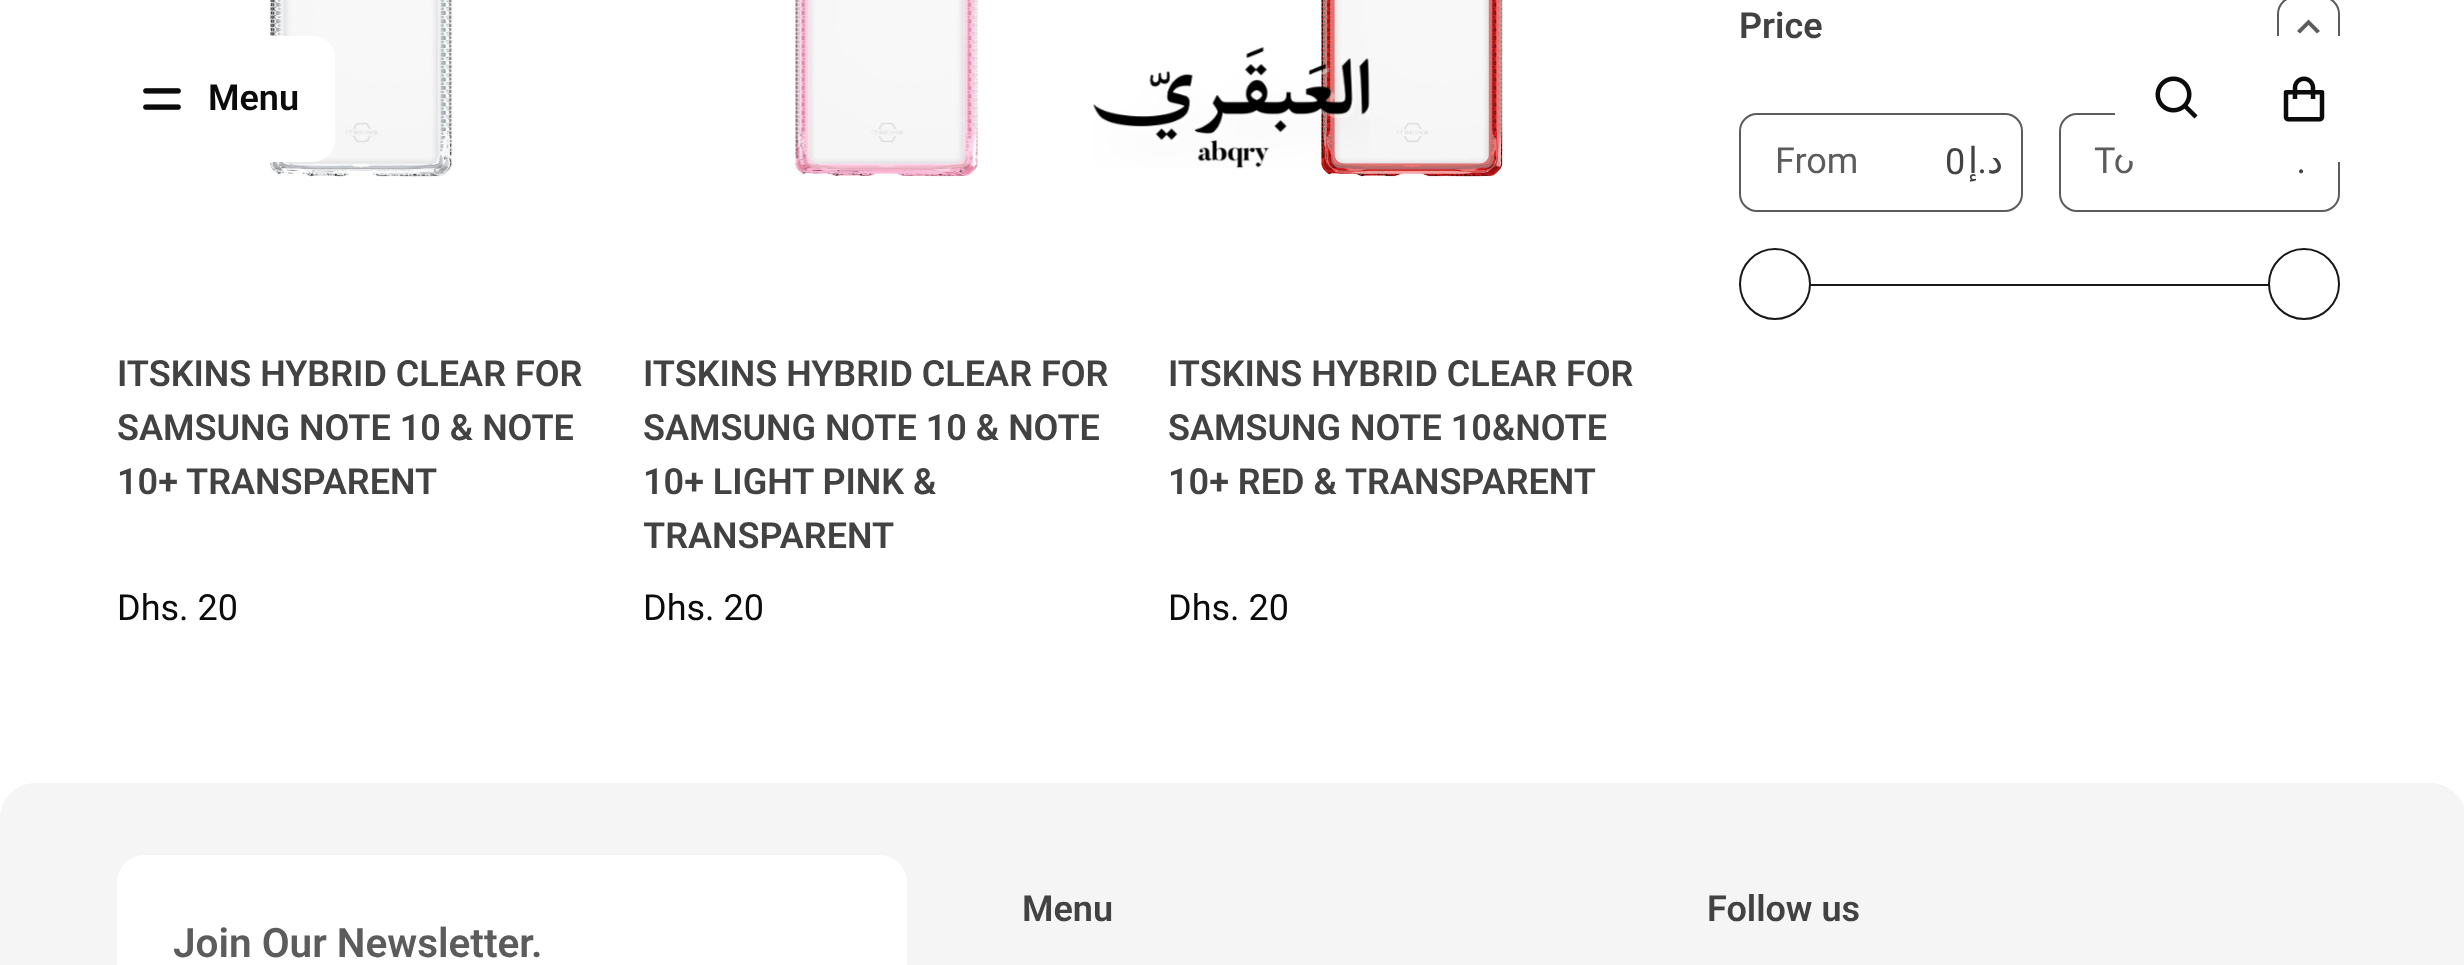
<!DOCTYPE html>
<meta charset="utf-8">
<style>body { margin: 0 } canvas { display: block }</style>
<canvas id="canvas" width="2464" height="965"></canvas>
<img id="img1" src="img_01.png" hidden>
<img id="img2" src="img_02.png" hidden>
<img id="img3" src="img_03.png" hidden>
<img id="img4" src="img_04.png" hidden>
<img id="img5" src="img_05.png" hidden>
<img id="img6" src="img_06.png" hidden>
<img id="img7" src="img_07.png" hidden>
<script>
window.onload = function () {
	const canvas = document.getElementById("canvas");
	const ctx = canvas.getContext("2d");
	ctx.miterLimit = 4;
	ctx.fontKerning = "normal";
	function txt(s, x, y) {
		ctx.fillText(s, x, y);
	}
	function fill(x, y, w, h) {
		ctx.fillRect(x, y, w, h);
	}
	function round(x, y, w, h, r) {
		ctx.beginPath();
		ctx.roundRect(x, y, w, h, r);
		ctx.fill();
	}
	function img(id, x, y, w, h) {
		ctx.drawImage(document.getElementById(id), x, y, w, h);
	}

	ctx.fillStyle = "#FFFFFF";
	fill(0, 0, 2464, 965);
	ctx.beginPath();
	ctx.roundRect(2278, -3, 61, 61, 17);
	ctx.strokeStyle = "#5C5C5C";
	ctx.lineWidth = 2;
	ctx.stroke();
	ctx.fillStyle = "#5C5C5C";
	ctx.beginPath();
	ctx.moveTo(2300, 33.5);
	ctx.lineTo(2308.5, 25);
	ctx.lineTo(2317, 33.5);
	ctx.lineTo(2320, 31);
	ctx.lineTo(2308.5, 19.5);
	ctx.lineTo(2297, 31);
	ctx.closePath();
	ctx.fill();
	ctx.beginPath();
	ctx.roundRect(1740, 114, 282, 97, 17);
	ctx.stroke();
	ctx.beginPath();
	ctx.roundRect(2060, 114, 279, 97, 17);
	ctx.stroke();
	ctx.fillStyle = "#181818";
	fill(1739, 284, 601, 2);
	ctx.fillStyle = "#FFFFFF";
	ctx.beginPath();
	ctx.arc(1775, 284, 35, 0, Math.PI * 2);
	ctx.fill();
	ctx.strokeStyle = "#181818";
	ctx.stroke();
	ctx.beginPath();
	ctx.arc(2304, 284, 35, 0, Math.PI * 2);
	ctx.fill();
	ctx.stroke();
	img("img1", 270, 0, 183, 177);
	img("img2", 794, 0, 184, 177);
	img("img3", 1188, 0, 316, 178);
	fill(270, 36, 43, 9);
	ctx.beginPath();
	ctx.roundRect(313, 36, 22, 23, [0, 22, 0, 0]);
	ctx.fill();
	img("img4", 143, 88, 38, 22);
	ctx.beginPath();
	ctx.roundRect(313, 140, 22, 22, [0, 0, 22, 0]);
	ctx.fill();
	fill(270, 45, 56, 108);
	fill(326, 59, 9, 81);
	fill(270, 153, 43, 9);
	fill(2115, 113, 9, 2);
	fill(2124, 113, 126, 2);
	img("img5", 2155, 76, 43, 43);
	fill(2277, 36, 63, 9);
	fill(2250, 45, 90, 108);
	img("img6", 2283, 76, 42, 46);
	fill(2338, 153, 2, 9);
	img("img7", 1093, 47, 277, 122);
	ctx.fillStyle = "#F5F5F5";
	ctx.beginPath();
	ctx.moveTo(36, 783);
	ctx.lineTo(2430, 783);
	ctx.bezierCurveTo(2450, 783, 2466, 799, 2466, 819);
	ctx.lineTo(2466, 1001);
	ctx.lineTo(0, 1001);
	ctx.lineTo(0, 819);
	ctx.bezierCurveTo(0, 799, 16, 783, 36, 783);
	ctx.closePath();
	ctx.fill();
	ctx.fillStyle = "#FFFFFF";
	round(117, 855, 790, 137, 27);
	ctx.font = "600 36px Roboto";
	ctx.fillStyle = "#424242";
	txt("Price", 1739, 38);
	ctx.font = "36px Roboto";
	ctx.fillStyle = "#5C5C5C";
	txt("From", 1775, 173);
	ctx.fillStyle = "#424242";
	txt("0", 1945, 174);
	ctx.direction = "rtl";
	ctx.font = "36px DejaVu Sans";
	txt("إ", 1978, 173);
	ctx.font = "36px Roboto";
	txt(".", 1987, 173);
	ctx.font = "36px DejaVu Sans";
	txt("د", 2003, 173);
	ctx.direction = "ltr";
	ctx.font = "36px Roboto";
	ctx.fillStyle = "#5C5C5C";
	txt("To", 2094, 173);
	ctx.direction = "rtl";
	ctx.fillStyle = "#424242";
	txt(".", 2306, 173);
	ctx.direction = "ltr";
	ctx.font = "600 36px Roboto";
	txt("ITSKINS HYBRID CLEAR FOR", 117, 386);
	txt("SAMSUNG NOTE 10 & NOTE", 117, 440);
	txt("10+ TRANSPARENT", 117, 494);
	ctx.font = "36px Roboto";
	ctx.fillStyle = "#0B0B0B";
	txt("Dhs. 20", 117, 620);
	ctx.font = "600 36px Roboto";
	ctx.fillStyle = "#424242";
	txt("ITSKINS HYBRID CLEAR FOR", 643, 386);
	txt("SAMSUNG NOTE 10 & NOTE", 643, 440);
	txt("10+ LIGHT PINK &", 643, 494);
	ctx.save();
	ctx.beginPath();
	ctx.roundRect(644, -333, 488, 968, 27);
	ctx.clip();
	txt("TRANSPARENT", 643, 548);
	ctx.font = "36px Roboto";
	ctx.fillStyle = "#0B0B0B";
	txt("Dhs. 20", 643, 620);
	ctx.restore();
	txt("ITSKINS HYBRID CLEAR FOR", 1168, 386);
	txt("SAMSUNG NOTE 10&NOTE", 1168, 440);
	txt("10+ RED & TRANSPARENT", 1168, 494);
	ctx.font = "36px Roboto";
	ctx.fillStyle = "#0B0B0B";
	txt("Dhs. 20", 1168, 620);
	ctx.font = "600 36px Roboto";
	txt("Menu", 208, 110);
	ctx.fillStyle = "#FFFFFF";
	ctx.beginPath();
	ctx.roundRect(2115, 140, 23, 22, [0, 0, 0, 22]);
	ctx.fill();
	ctx.fillStyle = "#424242";
	txt("Menu", 1022, 921);
	txt("Follow us", 1707, 921);
	ctx.font = "600 40.5px Roboto";
	ctx.fillStyle = "#5C5C5C";
	txt("Join Our Newsletter.", 173, 957);
};
</script>
